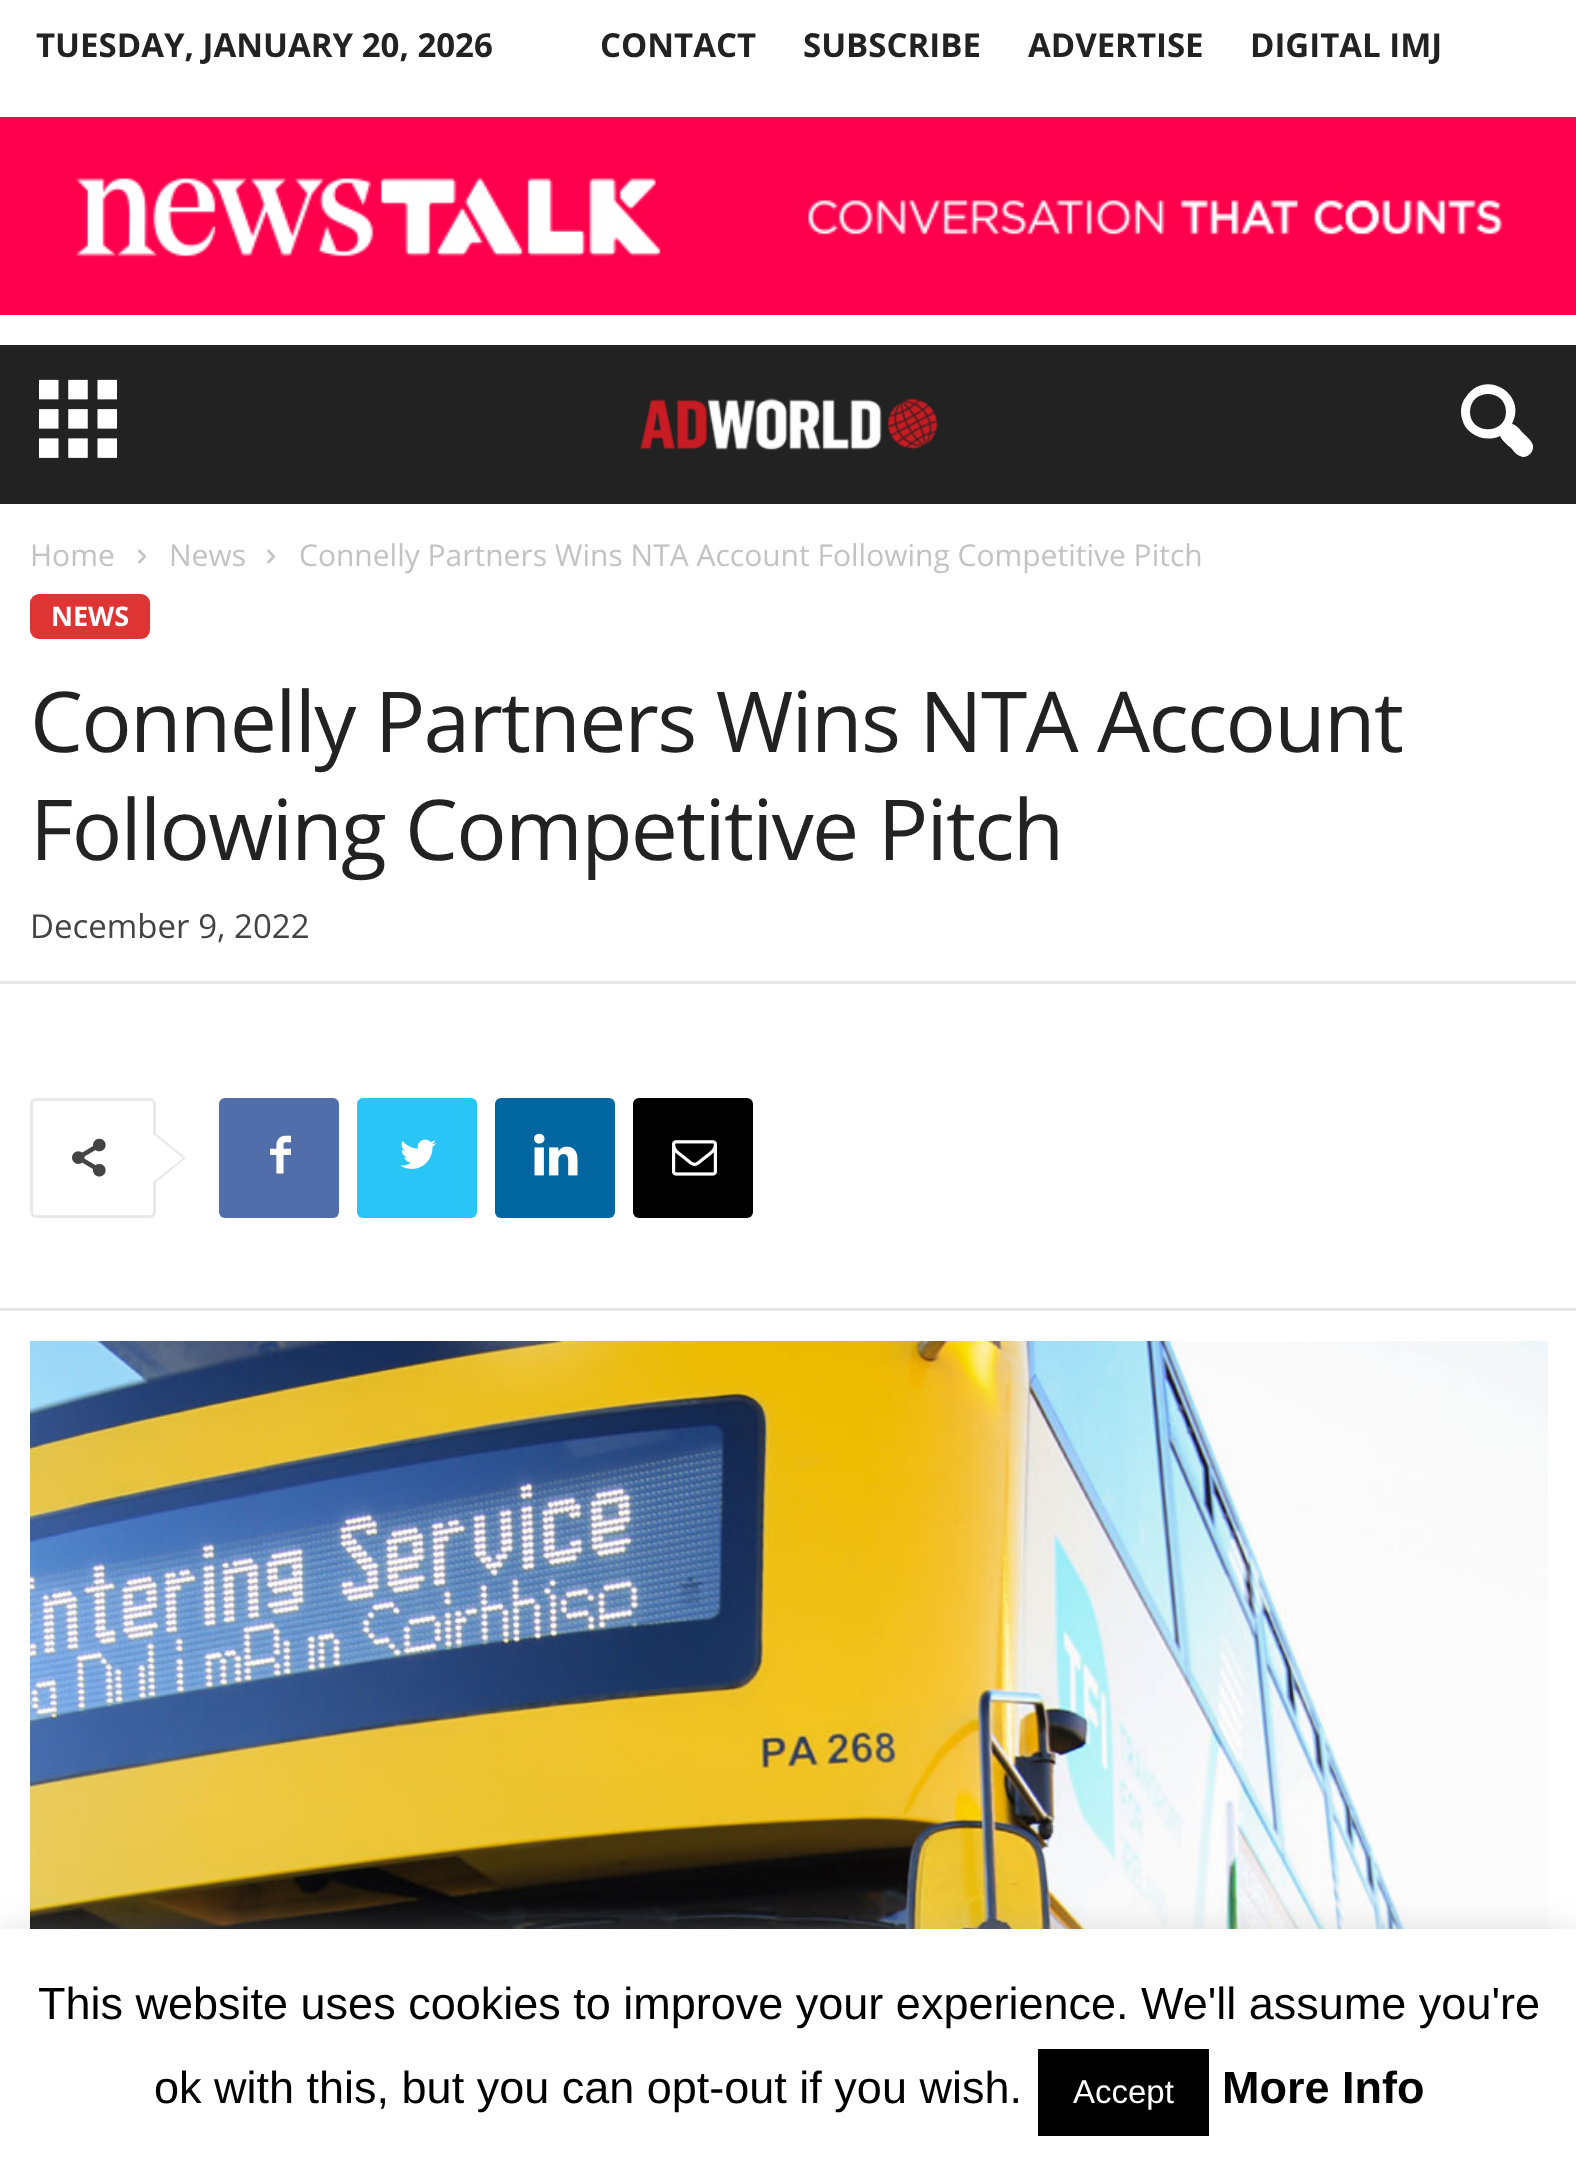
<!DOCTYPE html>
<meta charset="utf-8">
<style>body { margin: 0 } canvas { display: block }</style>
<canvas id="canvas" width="1576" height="2172"></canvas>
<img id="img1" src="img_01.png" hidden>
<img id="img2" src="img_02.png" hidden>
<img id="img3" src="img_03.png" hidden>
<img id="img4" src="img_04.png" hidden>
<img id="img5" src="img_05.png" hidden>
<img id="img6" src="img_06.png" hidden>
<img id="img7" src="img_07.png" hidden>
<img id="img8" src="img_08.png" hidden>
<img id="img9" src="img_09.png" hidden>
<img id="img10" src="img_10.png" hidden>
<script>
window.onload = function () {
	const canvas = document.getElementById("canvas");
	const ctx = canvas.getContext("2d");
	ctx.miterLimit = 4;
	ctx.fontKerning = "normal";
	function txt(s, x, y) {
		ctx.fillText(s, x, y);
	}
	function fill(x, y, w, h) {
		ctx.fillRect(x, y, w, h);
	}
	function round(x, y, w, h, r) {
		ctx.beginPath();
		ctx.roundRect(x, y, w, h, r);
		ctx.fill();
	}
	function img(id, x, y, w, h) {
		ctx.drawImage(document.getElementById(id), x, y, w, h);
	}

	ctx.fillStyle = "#FFFFFF";
	fill(0, 0, 1576, 2172);
	img("img1", 0, 117, 1576, 198);
	ctx.fillStyle = "#222222";
	fill(0, 345, 1576, 159);
	img("img2", 39, 379, 78, 79);
	img("img3", 639, 398, 299, 52);
	ctx.fillStyle = "#FFFFFF";
	ctx.beginPath();
	ctx.moveTo(1462, 419);
	ctx.bezierCurveTo(1460, 411, 1461, 403, 1466, 397);
	ctx.bezierCurveTo(1485, 368, 1528, 394, 1512, 424);
	ctx.bezierCurveTo(1517, 425, 1520, 430, 1523, 433);
	ctx.bezierCurveTo(1526, 436, 1530, 439, 1532, 443);
	ctx.bezierCurveTo(1536, 450, 1528, 460, 1520, 456);
	ctx.bezierCurveTo(1517, 455, 1514, 452, 1512, 449);
	ctx.bezierCurveTo(1509, 446, 1502, 441, 1500, 436);
	ctx.bezierCurveTo(1485, 443, 1466, 435, 1462, 419);
	ctx.closePath();
	ctx.moveTo(1470, 412);
	ctx.bezierCurveTo(1470, 435, 1506, 435, 1506, 412);
	ctx.bezierCurveTo(1506, 388, 1470, 388, 1470, 412);
	ctx.closePath();
	ctx.fill();
	img("img4", 138, 549, 9, 15);
	img("img4", 267, 549, 9, 15);
	ctx.fillStyle = "#DE3434";
	round(30, 594, 120, 45, 9);
	ctx.fillStyle = "#E6E6E6";
	fill(0, 981, 1576, 3);
	ctx.beginPath();
	ctx.roundRect(31.5, 1099.5, 123, 117, 4.5);
	ctx.strokeStyle = "#E9E9E9";
	ctx.lineWidth = 3;
	ctx.stroke();
	ctx.fillStyle = "#E9E9E9";
	ctx.beginPath();
	ctx.moveTo(153, 1185);
	ctx.lineTo(153, 1131);
	ctx.lineTo(186, 1158);
	ctx.closePath();
	ctx.fill();
	img("img5", 72, 1138, 34, 39);
	ctx.fillStyle = "#FFFFFF";
	ctx.beginPath();
	ctx.moveTo(153, 1182);
	ctx.lineTo(153, 1134);
	ctx.lineTo(183, 1158);
	ctx.closePath();
	ctx.fill();
	ctx.fillStyle = "#516EAB";
	round(219, 1098, 120, 120, 6);
	img("img6", 270, 1135, 21, 39);
	ctx.fillStyle = "#29C5F6";
	round(357, 1098, 120, 120, 6);
	img("img7", 400, 1139, 36, 30);
	ctx.fillStyle = "#0266A0";
	round(495, 1098, 120, 120, 6);
	img("img8", 534, 1133, 44, 43);
	ctx.fillStyle = "#000000";
	round(633, 1098, 120, 120, 6);
	img("img9", 672, 1140, 45, 36);
	ctx.fillStyle = "#E6E6E6";
	fill(0, 1308, 1576, 3);
	img("img10", 30, 1341, 1518, 588);
	ctx.fillStyle = "rgba(172, 171, 171, 0.3)";
	ctx.filter = "blur(15px)";
	ctx.beginPath();
	ctx.rect(0, 1926, 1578, 243);
	ctx.fill();
	ctx.filter = "none";
	ctx.fillStyle = "#FFFFFF";
	fill(0, 1929, 1576, 243);
	ctx.fillStyle = "#000000";
	fill(1038, 2049, 171, 87);
	ctx.font = "bold 33px Open Sans";
	ctx.fillStyle = "#222222";
	txt("TUESDAY, JANUARY 20, 2026", 36, 57);
	txt("CONTACT", 600, 57);
	txt("SUBSCRIBE", 803, 57);
	txt("ADVERTISE", 1028, 57);
	txt("DIGITAL IMJ", 1250, 57);
	ctx.font = "30px Open Sans";
	ctx.fillStyle = "#C3C3C3";
	txt("Home", 30, 566);
	txt("News", 169, 566);
	txt("Connelly Partners Wins NTA Account Following Competitive Pitch", 299, 566);
	ctx.font = "bold 27px Open Sans";
	ctx.fillStyle = "#FFFFFF";
	txt("NEWS", 51, 626);
	ctx.letterSpacing = "-1.7px";
	ctx.font = "84px Open Sans";
	ctx.fillStyle = "#222222";
	txt("Connelly Partners Wins NTA Account", 30, 752);
	txt("Following Competitive Pitch", 30, 860);
	ctx.letterSpacing = "0px";
	ctx.font = "33px Open Sans";
	ctx.fillStyle = "#444444";
	txt("December 9, 2022", 30, 938);
	ctx.font = "45px Liberation Sans";
	ctx.fillStyle = "#000000";
	txt("This website uses cookies to improve your experience. We'll assume you're", 38, 2019);
	txt("ok with this, but you can opt-out if you wish.", 154, 2103);
	ctx.font = "33px Liberation Sans";
	ctx.fillStyle = "#FFFFFF";
	txt("Accept", 1073, 2103);
	ctx.font = "bold 45px Liberation Sans";
	ctx.fillStyle = "#000000";
	txt("More Info", 1222, 2103);
};
</script>
